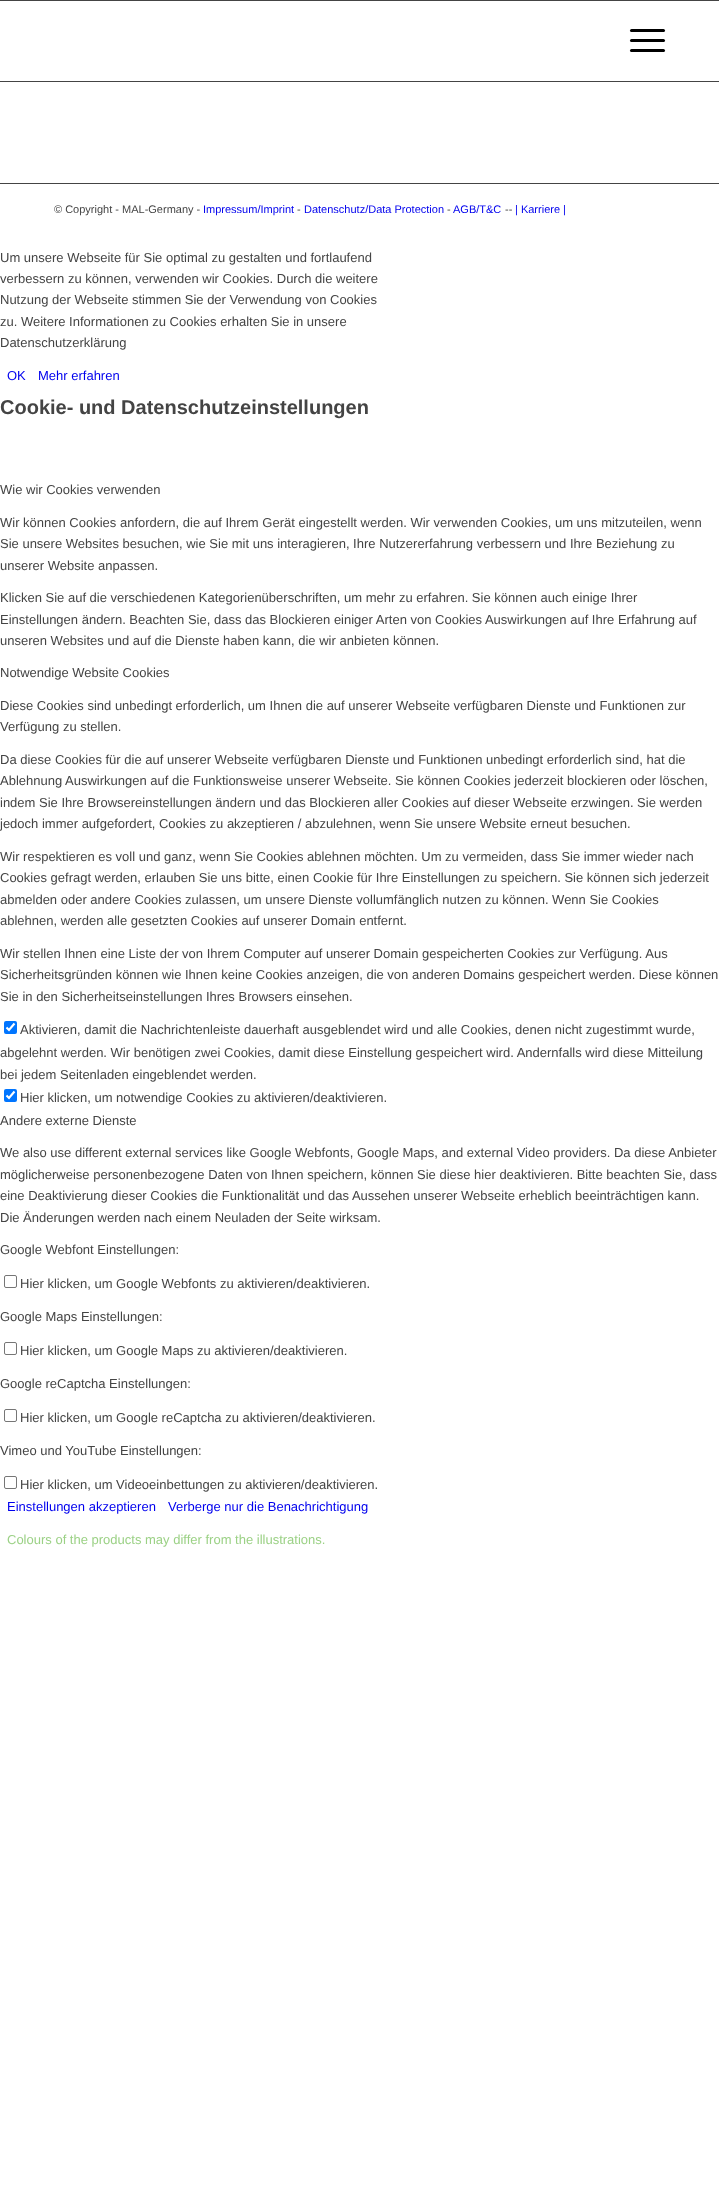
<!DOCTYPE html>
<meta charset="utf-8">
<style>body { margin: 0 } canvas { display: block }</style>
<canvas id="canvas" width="719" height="2199"></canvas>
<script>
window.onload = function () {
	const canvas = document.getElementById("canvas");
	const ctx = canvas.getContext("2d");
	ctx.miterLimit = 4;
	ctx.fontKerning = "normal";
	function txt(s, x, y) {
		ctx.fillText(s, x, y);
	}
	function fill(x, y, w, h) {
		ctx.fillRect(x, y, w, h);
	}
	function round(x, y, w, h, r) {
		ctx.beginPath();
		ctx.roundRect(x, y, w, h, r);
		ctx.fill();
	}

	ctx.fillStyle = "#FFFFFF";
	fill(0, 0, 719, 2199);
	ctx.fillStyle = "#444444";
	fill(0, 0, 719, 1);
	fill(0, 81, 719, 1);
	ctx.fillStyle = "#000000";
	round(630, 39, 35, 3, 1.5);
	round(630, 29, 35, 3, 1.5);
	round(630, 49, 35, 3, 1.5);
	ctx.fillStyle = "#444444";
	fill(0, 183, 719, 1);
	ctx.fillStyle = "#0075FF";
	round(4, 1021, 13, 13, 2);
	ctx.beginPath();
	ctx.moveTo(6.5, 1027.5);
	ctx.lineTo(9, 1030);
	ctx.lineTo(14.5, 1023.5);
	ctx.strokeStyle = "#FFFFFF";
	ctx.lineWidth = 2.1;
	ctx.stroke();
	round(4, 1089, 13, 13, 2);
	ctx.beginPath();
	ctx.moveTo(6.5, 1095.5);
	ctx.lineTo(9, 1098);
	ctx.lineTo(14.5, 1091.5);
	ctx.stroke();
	ctx.beginPath();
	ctx.roundRect(4.5, 1275.5, 12, 12, 1.5);
	ctx.strokeStyle = "#767676";
	ctx.lineWidth = 1;
	ctx.stroke();
	ctx.beginPath();
	ctx.roundRect(4.5, 1342.5, 12, 12, 1.5);
	ctx.stroke();
	ctx.beginPath();
	ctx.roundRect(4.5, 1409.5, 12, 12, 1.5);
	ctx.stroke();
	ctx.beginPath();
	ctx.roundRect(4.5, 1476.5, 12, 12, 1.5);
	ctx.stroke();
	ctx.font = "11px Liberation Sans";
	ctx.fillStyle = "#444444";
	txt("© Copyright - MAL-Germany -", 54, 213);
	ctx.fillStyle = "#0000EE";
	txt("Impressum/Imprint", 203, 213);
	ctx.fillStyle = "#444444";
	txt("-", 297, 213);
	ctx.fillStyle = "#0000EE";
	txt("Datenschutz/Data Protection", 304, 213);
	ctx.fillStyle = "#444444";
	txt("-", 447, 213);
	ctx.fillStyle = "#0000EE";
	txt("AGB/T&C", 453, 213);
	ctx.fillStyle = "#444444";
	txt("--", 505, 213);
	ctx.fillStyle = "#0000EE";
	txt("| Karriere |", 515, 213);
	ctx.font = "13px Liberation Sans";
	ctx.fillStyle = "#444444";
	txt("Um unsere Webseite für Sie optimal zu gestalten und fortlaufend", 0, 262);
	txt("verbessern zu können, verwenden wir Cookies. Durch die weitere", 0, 283);
	txt("Nutzung der Webseite stimmen Sie der Verwendung von Cookies", 0, 304);
	txt("zu. Weitere Informationen zu Cookies erhalten Sie in unsere", 0, 326);
	txt("Datenschutzerklärung", 0, 347);
	ctx.fillStyle = "#0000EE";
	txt("OK", 7, 380);
	txt("Mehr erfahren", 38, 380);
	ctx.font = "bold 20px Liberation Sans";
	ctx.fillStyle = "#444444";
	txt("Cookie- und Datenschutzeinstellungen", 0, 414);
	ctx.font = "13px Liberation Sans";
	txt("Wie wir Cookies verwenden", 0, 494);
	txt("Wir können Cookies anfordern, die auf Ihrem Gerät eingestellt werden. Wir verwenden Cookies, um uns mitzuteilen, wenn", 0, 527);
	txt("Sie unsere Websites besuchen, wie Sie mit uns interagieren, Ihre Nutzererfahrung verbessern und Ihre Beziehung zu", 0, 548);
	txt("unserer Website anpassen.", 0, 570);
	txt("Klicken Sie auf die verschiedenen Kategorienüberschriften, um mehr zu erfahren. Sie können auch einige Ihrer", 0, 602);
	txt("Einstellungen ändern. Beachten Sie, dass das Blockieren einiger Arten von Cookies Auswirkungen auf Ihre Erfahrung auf", 0, 624);
	txt("unseren Websites und auf die Dienste haben kann, die wir anbieten können.", 0, 645);
	txt("Notwendige Website Cookies", 0, 677);
	txt("Diese Cookies sind unbedingt erforderlich, um Ihnen die auf unserer Webseite verfügbaren Dienste und Funktionen zur", 0, 710);
	txt("Verfügung zu stellen.", 0, 731);
	txt("Da diese Cookies für die auf unserer Webseite verfügbaren Dienste und Funktionen unbedingt erforderlich sind, hat die", 0, 764);
	txt("Ablehnung Auswirkungen auf die Funktionsweise unserer Webseite. Sie können Cookies jederzeit blockieren oder löschen,", 0, 785);
	txt("indem Sie Ihre Browsereinstellungen ändern und das Blockieren aller Cookies auf dieser Webseite erzwingen. Sie werden", 0, 807);
	txt("jedoch immer aufgefordert, Cookies zu akzeptieren / abzulehnen, wenn Sie unsere Website erneut besuchen.", 0, 828);
	txt("Wir respektieren es voll und ganz, wenn Sie Cookies ablehnen möchten. Um zu vermeiden, dass Sie immer wieder nach", 0, 861);
	txt("Cookies gefragt werden, erlauben Sie uns bitte, einen Cookie für Ihre Einstellungen zu speichern. Sie können sich jederzeit", 0, 882);
	txt("abmelden oder andere Cookies zulassen, um unsere Dienste vollumfänglich nutzen zu können. Wenn Sie Cookies", 0, 904);
	txt("ablehnen, werden alle gesetzten Cookies auf unserer Domain entfernt.", 0, 925);
	txt("Wir stellen Ihnen eine Liste der von Ihrem Computer auf unserer Domain gespeicherten Cookies zur Verfügung. Aus", 0, 958);
	txt("Sicherheitsgründen können wie Ihnen keine Cookies anzeigen, die von anderen Domains gespeichert werden. Diese können", 0, 979);
	txt("Sie in den Sicherheitseinstellungen Ihres Browsers einsehen.", 0, 1001);
	txt("Aktivieren, damit die Nachrichtenleiste dauerhaft ausgeblendet wird und alle Cookies, denen nicht zugestimmt wurde,", 20, 1034);
	txt("abgelehnt werden. Wir benötigen zwei Cookies, damit diese Einstellung gespeichert wird. Andernfalls wird diese Mitteilung", 0, 1057);
	txt("bei jedem Seitenladen eingeblendet werden.", 0, 1079);
	txt("Hier klicken, um notwendige Cookies zu aktivieren/deaktivieren.", 20, 1102);
	txt("Andere externe Dienste", 0, 1125);
	txt("We also use different external services like Google Webfonts, Google Maps, and external Video providers. Da diese Anbieter", 0, 1157);
	txt("möglicherweise personenbezogene Daten von Ihnen speichern, können Sie diese hier deaktivieren. Bitte beachten Sie, dass", 0, 1179);
	txt("eine Deaktivierung dieser Cookies die Funktionalität und das Aussehen unserer Webseite erheblich beeinträchtigen kann.", 0, 1200);
	txt("Die Änderungen werden nach einem Neuladen der Seite wirksam.", 0, 1222);
	txt("Google Webfont Einstellungen:", 0, 1254);
	txt("Hier klicken, um Google Webfonts zu aktivieren/deaktivieren.", 20, 1288);
	txt("Google Maps Einstellungen:", 0, 1321);
	txt("Hier klicken, um Google Maps zu aktivieren/deaktivieren.", 20, 1355);
	txt("Google reCaptcha Einstellungen:", 0, 1388);
	txt("Hier klicken, um Google reCaptcha zu aktivieren/deaktivieren.", 20, 1422);
	txt("Vimeo und YouTube Einstellungen:", 0, 1455);
	txt("Hier klicken, um Videoeinbettungen zu aktivieren/deaktivieren.", 20, 1489);
	ctx.fillStyle = "#0000EE";
	txt("Einstellungen akzeptieren", 7, 1511);
	txt("Verberge nur die Benachrichtigung", 168, 1511);
	ctx.fillStyle = "#9BD185";
	txt("Colours of the products may differ from the illustrations.", 7, 1544);
};
</script>
